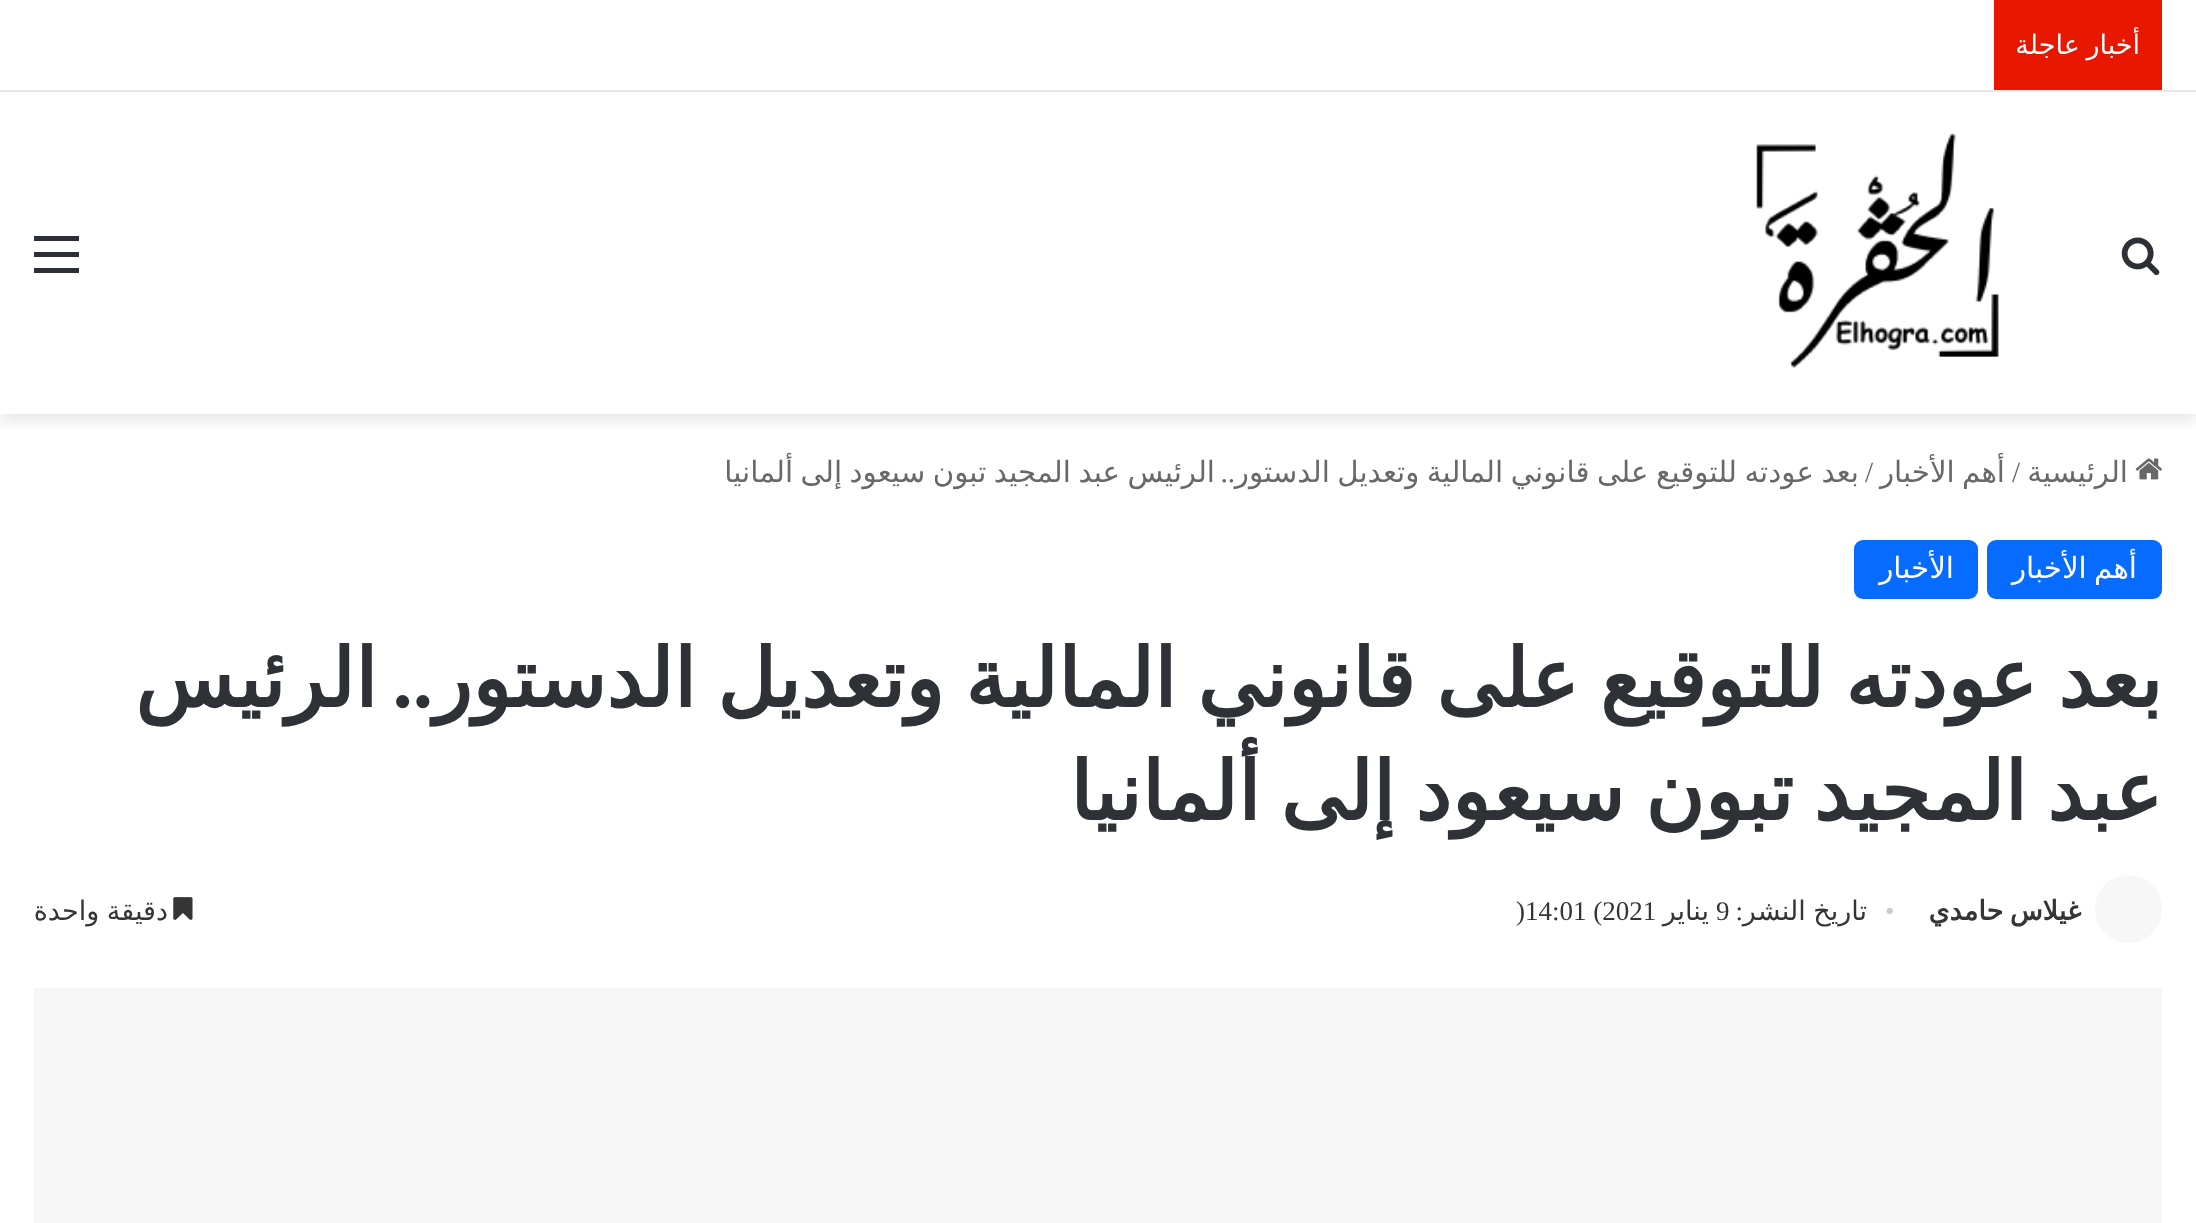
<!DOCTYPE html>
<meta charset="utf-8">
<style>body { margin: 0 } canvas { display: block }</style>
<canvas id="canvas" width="2196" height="1223"></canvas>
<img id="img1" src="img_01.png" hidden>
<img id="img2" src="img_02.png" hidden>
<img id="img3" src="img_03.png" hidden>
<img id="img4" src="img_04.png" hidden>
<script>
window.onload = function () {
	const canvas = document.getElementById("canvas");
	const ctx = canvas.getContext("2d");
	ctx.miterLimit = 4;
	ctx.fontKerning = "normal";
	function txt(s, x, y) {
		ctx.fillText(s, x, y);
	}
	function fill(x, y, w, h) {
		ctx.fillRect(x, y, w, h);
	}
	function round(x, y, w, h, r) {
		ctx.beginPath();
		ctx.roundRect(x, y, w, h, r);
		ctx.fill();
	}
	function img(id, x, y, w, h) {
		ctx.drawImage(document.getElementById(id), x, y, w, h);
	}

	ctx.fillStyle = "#FFFFFF";
	fill(0, 0, 2196, 1223);
	ctx.save();
	ctx.beginPath();
	ctx.rect(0, 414, 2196, 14);
	ctx.clip();
	ctx.fillStyle = "rgba(0, 0, 0, 0.1)";
	ctx.filter = "blur(8px)";
	ctx.beginPath();
	ctx.rect(0, 99, 2196, 322);
	ctx.fill();
	ctx.filter = "none";
	ctx.restore();
	fill(8, 89, 2180, 1);
	ctx.fillStyle = "#E6E6E6";
	fill(0, 90, 2196, 2);
	ctx.fillStyle = "#E81700";
	fill(1994, 0, 168, 90);
	img("img1", 2121, 237, 39, 39);
	img("img2", 1756, 133, 243, 235);
	ctx.fillStyle = "#2C2F34";
	fill(34, 252, 45, 5);
	fill(34, 236, 45, 5);
	fill(34, 268, 45, 5);
	img("img3", 2135, 458, 27, 22);
	ctx.fillStyle = "#086BFF";
	round(1987, 540, 175, 59, 9);
	round(1854, 540, 124, 59, 9);
	ctx.fillStyle = "#F7F7F7";
	round(2095, 875, 67, 68, 33.5);
	img("img4", 173, 897, 20, 23);
	fill(34, 988, 2128, 235);
	ctx.wordSpacing = "-2px";
	ctx.direction = "rtl";
	ctx.font = "27px DejaVu Sans";
	ctx.fillStyle = "#FFFFFF";
	txt("أخبار عاجلة", 2140, 54);
	ctx.wordSpacing = "0px";
	ctx.font = "29.25px DejaVu Sans";
	ctx.fillStyle = "#686868";
	txt("الرئيسية", 2128, 482);
	ctx.direction = "ltr";
	ctx.font = "29.25px Liberation Serif";
	txt("/", 2012, 482);
	ctx.wordSpacing = "-2px";
	ctx.direction = "rtl";
	ctx.font = "29.25px DejaVu Sans";
	txt("أهم الأخبار", 2005, 482);
	ctx.wordSpacing = "0px";
	ctx.direction = "ltr";
	ctx.font = "29.25px Liberation Serif";
	txt("/", 1865, 482);
	ctx.wordSpacing = "-1.75px";
	ctx.direction = "rtl";
	ctx.font = "29.25px DejaVu Sans";
	txt("الرئيس عبد المجيد تبون سيعود إلى ألمانيا", 1215, 482);
	ctx.wordSpacing = "0px";
	ctx.font = "29.25px Liberation Serif";
	txt("..", 1235, 482);
	ctx.wordSpacing = "-1.75px";
	ctx.font = "29.25px DejaVu Sans";
	txt("بعد عودته للتوقيع على قانوني المالية وتعديل الدستور", 1859, 482);
	ctx.wordSpacing = "-2px";
	ctx.fillStyle = "#FFFFFF";
	txt("أهم الأخبار", 2137, 578);
	ctx.wordSpacing = "0px";
	txt("الأخبار", 1954, 578);
	ctx.wordSpacing = "-4.75px";
	ctx.font = "bold 81px DejaVu Sans";
	ctx.fillStyle = "#2E3136";
	txt("بعد عودته للتوقيع على قانوني المالية وتعديل الدستور", 2162, 707);
	ctx.wordSpacing = "0px";
	ctx.font = "bold 81px Liberation Serif";
	txt("..", 433, 707);
	ctx.font = "bold 81px DejaVu Sans";
	txt("الرئيس", 377, 707);
	ctx.wordSpacing = "-5.5px";
	txt("عبد المجيد تبون سيعود إلى ألمانيا", 2162, 820);
	ctx.wordSpacing = "-2px";
	ctx.font = "bold 27px DejaVu Sans";
	ctx.fillStyle = "#353535";
	txt("غيلاس حامدي", 2081, 920);
	ctx.wordSpacing = "0px";
	ctx.direction = "ltr";
	ctx.font = "27px Liberation Serif";
	ctx.fillStyle = "#CDCDCD";
	txt("•", 1885, 920);
	ctx.wordSpacing = "-1px";
	ctx.direction = "rtl";
	ctx.font = "27px DejaVu Sans";
	ctx.fillStyle = "#353535";
	txt("تاريخ النشر", 1867, 920);
	ctx.wordSpacing = "0px";
	ctx.font = "27px Liberation Serif";
	txt(":", 1743, 920);
	ctx.direction = "ltr";
	txt("9", 1716, 920);
	ctx.direction = "rtl";
	ctx.font = "27px DejaVu Sans";
	txt("يناير", 1709, 920);
	ctx.direction = "ltr";
	ctx.font = "27px Liberation Serif";
	txt(")14:01 (2021", 1516, 920);
	ctx.wordSpacing = "-1px";
	ctx.direction = "rtl";
	ctx.font = "27px DejaVu Sans";
	txt("دقيقة واحدة", 168, 920);
};
</script>
